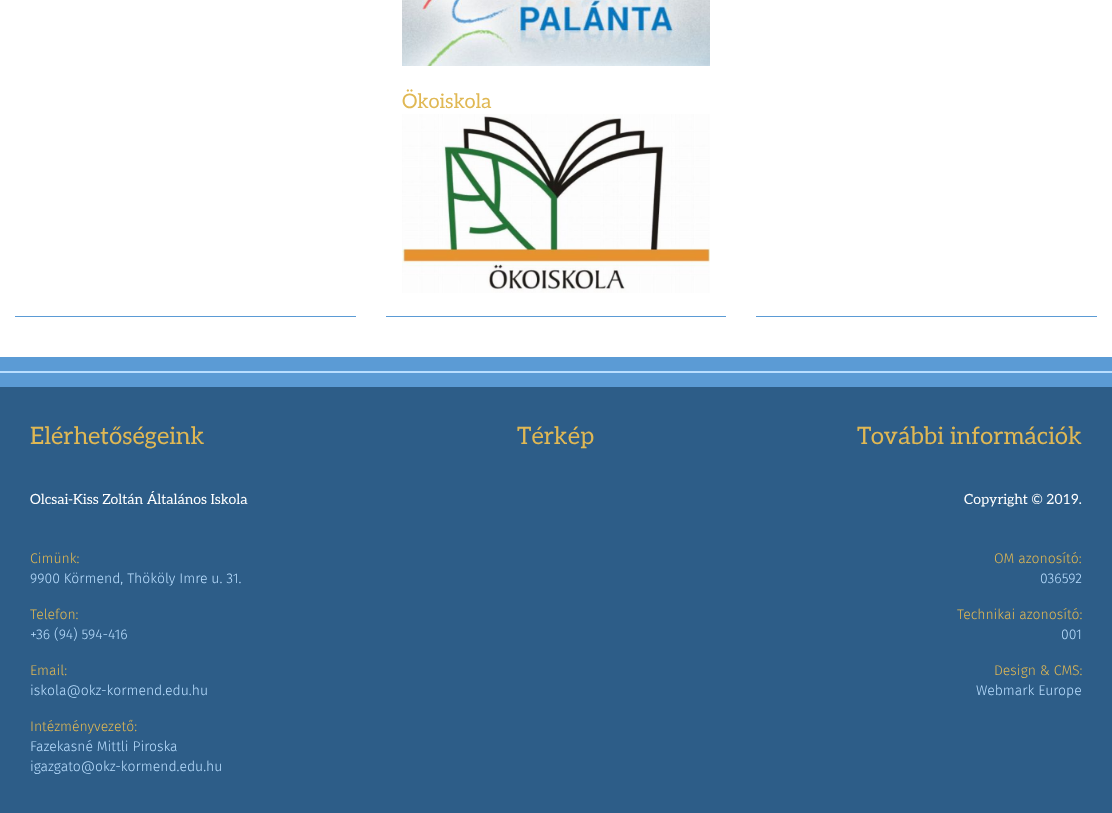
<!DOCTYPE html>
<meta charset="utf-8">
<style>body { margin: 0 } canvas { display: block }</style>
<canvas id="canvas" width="1112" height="813"></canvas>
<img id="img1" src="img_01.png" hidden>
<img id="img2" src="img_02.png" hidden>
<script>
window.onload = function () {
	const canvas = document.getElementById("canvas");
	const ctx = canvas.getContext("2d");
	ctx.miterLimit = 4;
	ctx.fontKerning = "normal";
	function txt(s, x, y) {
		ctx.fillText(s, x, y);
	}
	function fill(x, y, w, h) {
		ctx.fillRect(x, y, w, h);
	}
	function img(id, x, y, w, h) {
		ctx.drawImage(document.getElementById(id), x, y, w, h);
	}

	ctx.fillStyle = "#FFFFFF";
	fill(0, 0, 1112, 813);
	img("img1", 402, 0, 308, 66);
	img("img2", 402, 114, 308, 179);
	ctx.fillStyle = "#5B9BD5";
	fill(386, 316, 340, 1);
	fill(15, 316, 341, 1);
	fill(756, 316, 341, 1);
	fill(0, 357, 1112, 30);
	ctx.fillStyle = "#B9DEFF";
	fill(0, 371, 1112, 2);
	ctx.fillStyle = "#2D5D88";
	fill(0, 387, 1112, 426);
	ctx.font = "20px Aleo";
	ctx.fillStyle = "#E0B854";
	txt("Ökoiskola", 402, 108);
	ctx.font = "24px Aleo";
	txt("Elérhetőségeink", 30, 444);
	ctx.font = "14px Aleo";
	ctx.fillStyle = "#FFFFFF";
	txt("Olcsai-Kiss Zoltán Általános Iskola", 30, 504);
	ctx.font = "300 14px Fira Sans";
	ctx.fillStyle = "#E0B854";
	txt("Cimünk:", 30, 563);
	ctx.fillStyle = "#B9DEFF";
	txt("9900 Körmend, Thököly Imre u. 31.", 30, 583);
	ctx.fillStyle = "#E0B854";
	txt("Telefon:", 30, 619);
	ctx.fillStyle = "#B9DEFF";
	txt("+36 (94) 594-416", 30, 639);
	ctx.fillStyle = "#E0B854";
	txt("Email:", 30, 675);
	ctx.fillStyle = "#B9DEFF";
	txt("iskola@okz-kormend.edu.hu", 30, 695);
	ctx.fillStyle = "#E0B854";
	txt("Intézményvezető:", 30, 731);
	ctx.fillStyle = "#B9DEFF";
	txt("Fazekasné Mittli Piroska", 30, 751);
	txt("igazgato@okz-kormend.edu.hu", 30, 771);
	ctx.font = "24px Aleo";
	ctx.fillStyle = "#E0B854";
	txt("Térkép", 517, 444);
	txt("További információk", 857, 444);
	ctx.font = "14px Aleo";
	ctx.fillStyle = "#FFFFFF";
	txt("Copyright © 2019.", 964, 504);
	ctx.font = "300 14px Fira Sans";
	ctx.fillStyle = "#E0B854";
	txt("OM azonosító:", 994, 563);
	ctx.fillStyle = "#B9DEFF";
	txt("036592", 1040, 583);
	ctx.fillStyle = "#E0B854";
	txt("Technikai azonosító:", 957, 619);
	ctx.fillStyle = "#B9DEFF";
	txt("001", 1061, 639);
	ctx.fillStyle = "#E0B854";
	txt("Design & CMS:", 994, 675);
	ctx.fillStyle = "#B9DEFF";
	txt("Webmark Europe", 976, 695);
};
</script>
